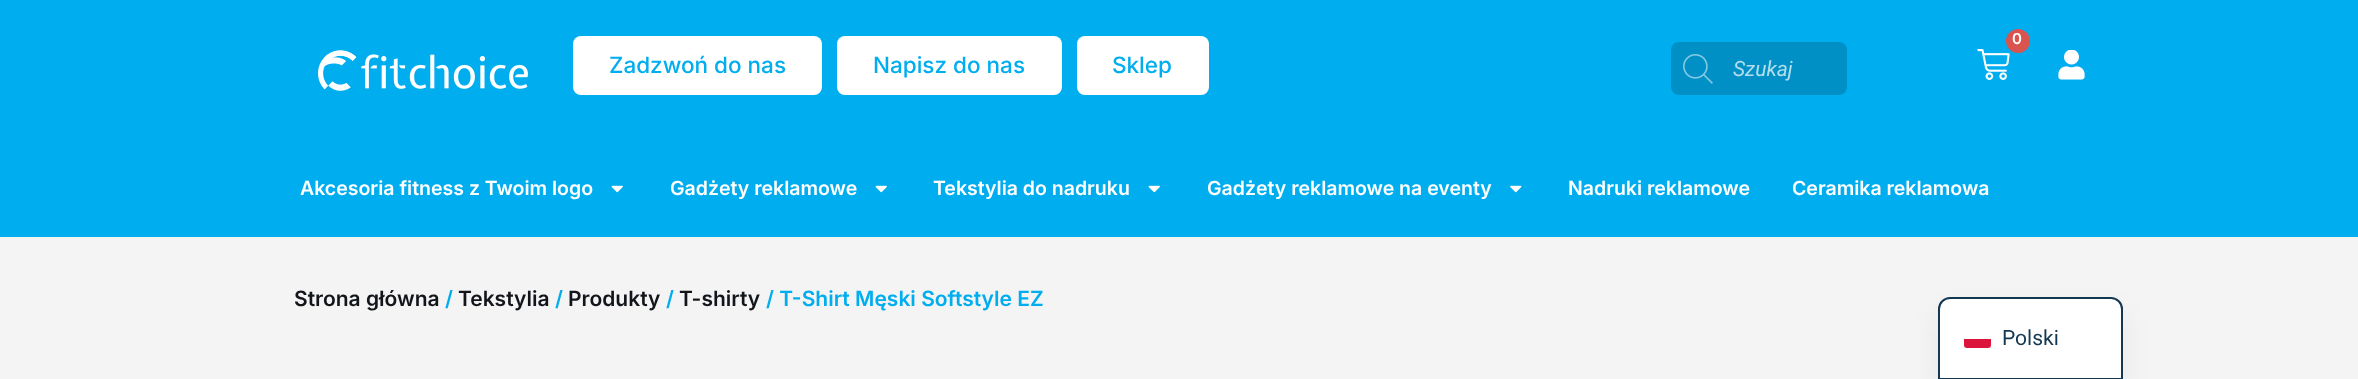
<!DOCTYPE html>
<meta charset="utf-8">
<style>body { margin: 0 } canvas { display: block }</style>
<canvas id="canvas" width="2358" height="379"></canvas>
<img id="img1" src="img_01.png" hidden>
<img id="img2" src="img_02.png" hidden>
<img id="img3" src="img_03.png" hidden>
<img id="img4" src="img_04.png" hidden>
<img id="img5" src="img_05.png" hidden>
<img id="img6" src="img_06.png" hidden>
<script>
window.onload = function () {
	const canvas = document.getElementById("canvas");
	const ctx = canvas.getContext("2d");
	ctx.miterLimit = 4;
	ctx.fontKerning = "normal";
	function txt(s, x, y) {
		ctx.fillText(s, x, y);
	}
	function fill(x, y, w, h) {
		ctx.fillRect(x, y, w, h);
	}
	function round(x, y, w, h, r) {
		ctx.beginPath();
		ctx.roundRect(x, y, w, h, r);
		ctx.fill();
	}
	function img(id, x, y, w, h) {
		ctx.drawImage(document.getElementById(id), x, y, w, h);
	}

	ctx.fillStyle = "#F4F4F4";
	fill(0, 0, 2358, 379);
	ctx.fillStyle = "#00ADEE";
	fill(0, 0, 2358, 237);
	img("img1", 1977, 49, 33, 31);
	ctx.fillStyle = "#D9534F";
	ctx.beginPath();
	ctx.arc(2018, 41, 12, 0, Math.PI * 2);
	ctx.fill();
	img("img2", 318, 50, 210, 41);
	ctx.fillStyle = "#FFFFFF";
	round(573, 36, 249, 59, 8);
	round(837, 36, 225, 59, 8);
	round(1077, 36, 132, 59, 8);
	ctx.fillStyle = "#0090C6";
	ctx.beginPath();
	ctx.roundRect(1672, 43, 174, 51, 7);
	ctx.fill();
	ctx.strokeStyle = "#0090C6";
	ctx.lineWidth = 2;
	ctx.stroke();
	img("img3", 1683, 54, 30, 30);
	img("img4", 2058, 50, 27, 30);
	img("img5", 611, 185, 12, 8);
	img("img5", 875, 185, 12, 8);
	img("img5", 1148, 185, 12, 8);
	img("img6", 1510, 185, 12, 8);
	ctx.fillStyle = "rgba(0, 0, 0, 0.05)";
	ctx.filter = "blur(15px)";
	ctx.beginPath();
	ctx.roundRect(1938, 312, 185, 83, 12);
	ctx.fill();
	ctx.filter = "none";
	ctx.fillStyle = "#FFFFFF";
	ctx.beginPath();
	ctx.moveTo(1950, 298);
	ctx.lineTo(2111, 298);
	ctx.bezierCurveTo(2117, 298, 2122, 303, 2122, 309);
	ctx.lineTo(2122, 379);
	ctx.lineTo(1939, 379);
	ctx.lineTo(1939, 309);
	ctx.bezierCurveTo(1939, 303, 1944, 298, 1950, 298);
	ctx.closePath();
	ctx.fill();
	ctx.strokeStyle = "#143852";
	ctx.stroke();
	ctx.fillStyle = "#DC143C";
	ctx.beginPath();
	ctx.roundRect(1964, 339, 27, 9, [0, 0, 3, 3]);
	ctx.fill();
	ctx.font = "600 15px Inter";
	ctx.fillStyle = "#FFFFFF";
	txt("0", 2012, 44);
	ctx.font = "500 22.5px Inter";
	ctx.fillStyle = "#00ADEE";
	txt("Zadzwoń do nas", 609, 73);
	txt("Napisz do nas", 873, 73);
	txt("Sklep", 1112, 73);
	ctx.font = "italic 21px Roboto";
	ctx.fillStyle = "#B3DEEE";
	txt("Szukaj", 1733, 76);
	ctx.font = "600 19.5px Inter";
	ctx.fillStyle = "#FFFFFF";
	txt("Akcesoria fitness z Twoim logo", 300, 195);
	txt("Gadżety reklamowe", 670, 195);
	txt("Tekstylia do nadruku", 933, 195);
	txt("Gadżety reklamowe na eventy", 1207, 195);
	txt("Nadruki reklamowe", 1568, 195);
	txt("Ceramika reklamowa", 1792, 195);
	ctx.font = "600 21px Inter";
	ctx.fillStyle = "#12151A";
	txt("Strona główna", 294, 306);
	ctx.fillStyle = "#00ADEE";
	txt("/", 445, 306);
	ctx.fillStyle = "#12151A";
	txt("Tekstylia", 458, 306);
	ctx.fillStyle = "#00ADEE";
	txt("/", 555, 306);
	ctx.fillStyle = "#12151A";
	txt("Produkty", 568, 306);
	ctx.fillStyle = "#00ADEE";
	txt("/", 666, 306);
	ctx.fillStyle = "#12151A";
	txt("T-shirty", 679, 306);
	ctx.fillStyle = "#00ADEE";
	txt("/ T-Shirt Męski Softstyle EZ", 766, 306);
	ctx.font = "21px Roboto";
	ctx.fillStyle = "#143852";
	txt("Polski", 2002, 345);
};
</script>
